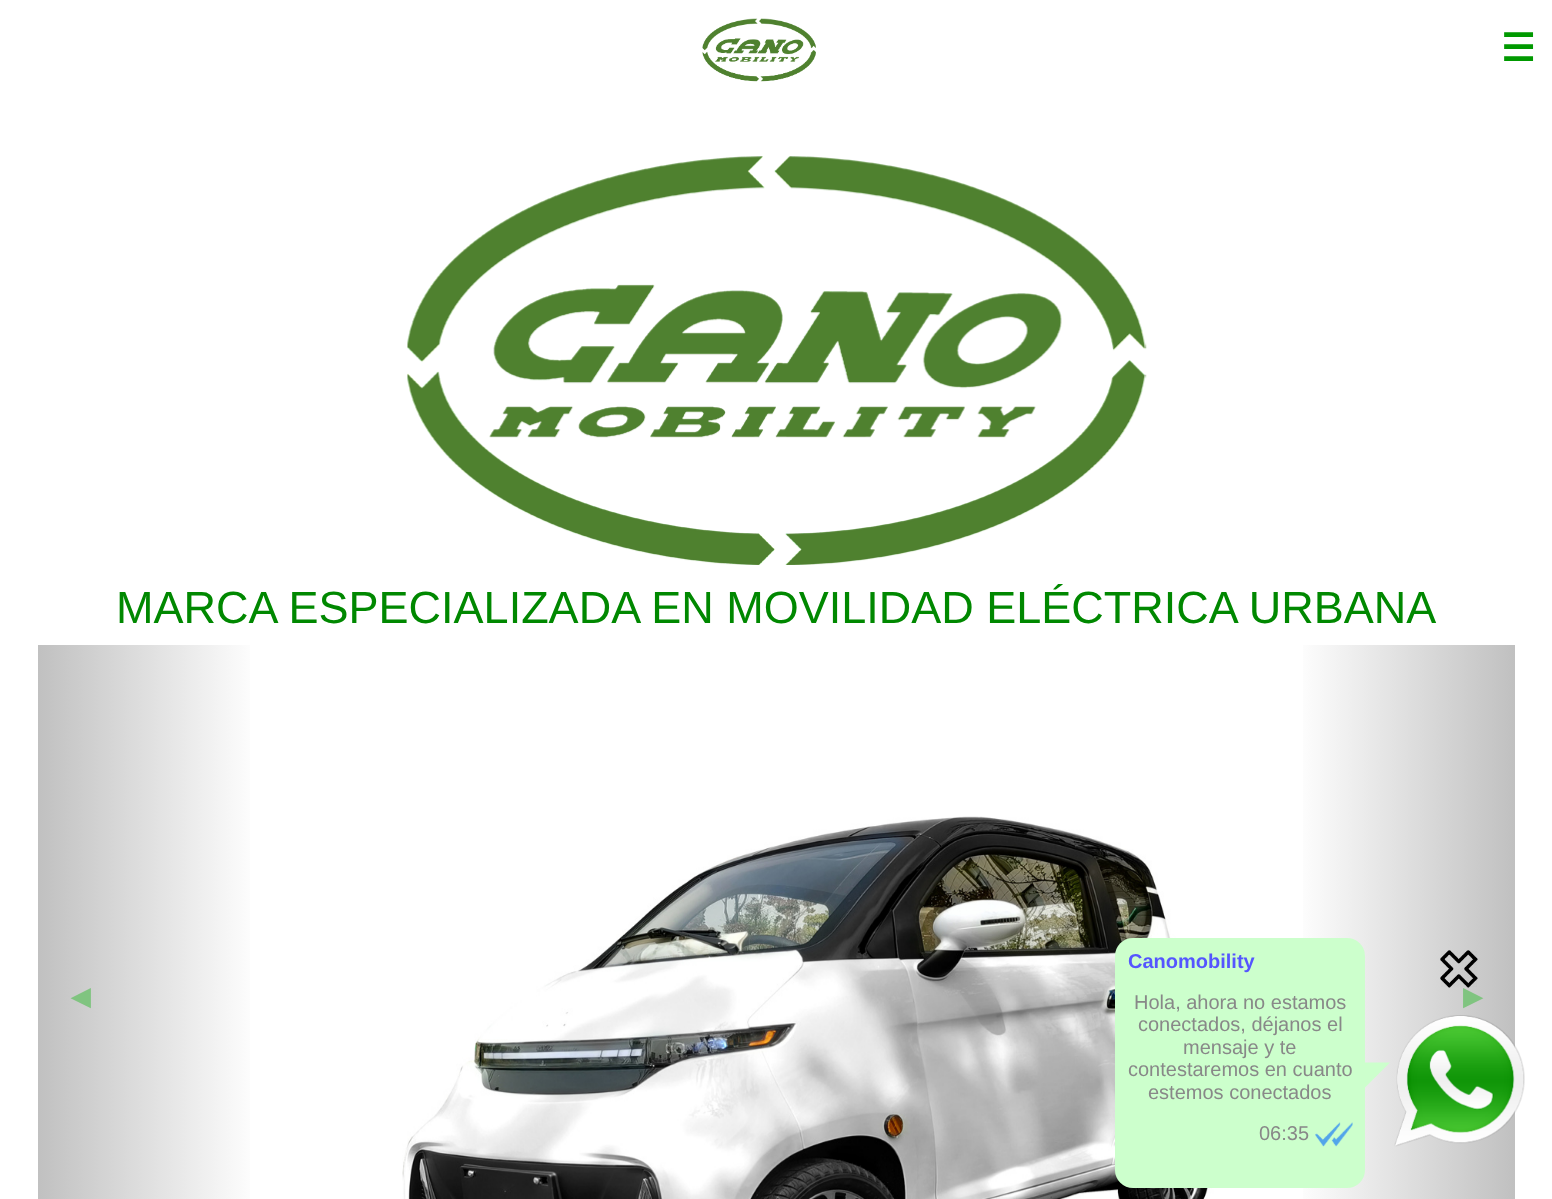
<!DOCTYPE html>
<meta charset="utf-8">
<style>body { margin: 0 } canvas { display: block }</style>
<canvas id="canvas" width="1552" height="1199"></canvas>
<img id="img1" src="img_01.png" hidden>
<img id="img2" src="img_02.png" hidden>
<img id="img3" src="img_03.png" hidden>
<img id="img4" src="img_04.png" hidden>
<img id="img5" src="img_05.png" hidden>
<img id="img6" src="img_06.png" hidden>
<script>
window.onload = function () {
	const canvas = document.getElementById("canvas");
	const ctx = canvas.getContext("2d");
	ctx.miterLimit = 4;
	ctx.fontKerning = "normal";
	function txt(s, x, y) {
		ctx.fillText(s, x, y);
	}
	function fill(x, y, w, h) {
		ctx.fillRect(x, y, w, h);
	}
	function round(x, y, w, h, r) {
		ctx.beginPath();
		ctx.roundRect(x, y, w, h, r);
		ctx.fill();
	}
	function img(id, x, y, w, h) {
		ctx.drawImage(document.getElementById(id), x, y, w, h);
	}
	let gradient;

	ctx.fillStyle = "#FFFFFF";
	fill(0, 0, 1552, 1199);
	img("img1", 702, 18, 114, 64);
	img("img2", 407, 156, 740, 409);
	gradient = ctx.createLinearGradient(37, 1061, 259, 1061);
	gradient.addColorStop(0, "#C0C0C0");
	gradient.addColorStop(1, "#FFFFFF");
	ctx.fillStyle = gradient;
	fill(38, 645, 212, 554);
	img("img3", 402, 816, 814, 383);
	gradient = ctx.createLinearGradient(1294, 1061, 1515, 1061);
	gradient.addColorStop(0, "#FFFFFF");
	gradient.addColorStop(1, "#C0C0C0");
	ctx.fillStyle = gradient;
	fill(1303, 645, 212, 554);
	ctx.fillStyle = "#CCFFCC";
	round(1115, 938, 250, 250, 18);
	img("img4", 1315, 1122, 38, 25);
	ctx.beginPath();
	ctx.moveTo(1365, 1062.5);
	ctx.lineTo(1390, 1062.5);
	ctx.lineTo(1365, 1087.5);
	ctx.closePath();
	ctx.fill();
	img("img5", 1440, 950, 38, 38);
	img("img6", 1394, 1015, 131, 132);
	ctx.font = "bold 38px DejaVu Sans";
	ctx.fillStyle = "#009900";
	txt("☰", 1501, 61);
	ctx.font = "45px Liberation Sans";
	ctx.fillStyle = "#008800";
	txt("MARCA ESPECIALIZADA EN MOVILIDAD ELÉCTRICA URBANA", 116, 623);
	ctx.font = "bold 25px DejaVu Sans";
	ctx.fillStyle = "#80C480";
	txt("◀", 71, 1005);
	txt("▶", 1463, 1005);
	ctx.font = "bold 20px Liberation Sans";
	ctx.fillStyle = "#5555FF";
	txt("Canomobility", 1128, 968);
	ctx.font = "20px Liberation Sans";
	ctx.fillStyle = "#888888";
	txt("Hola, ahora no estamos", 1134, 1009);
	txt("conectados, déjanos el", 1138, 1031);
	txt("mensaje y te", 1183, 1054);
	txt("contestaremos en cuanto", 1128, 1076);
	txt("estemos conectados", 1148, 1099);
	txt("06:35", 1259, 1140);
};
</script>
